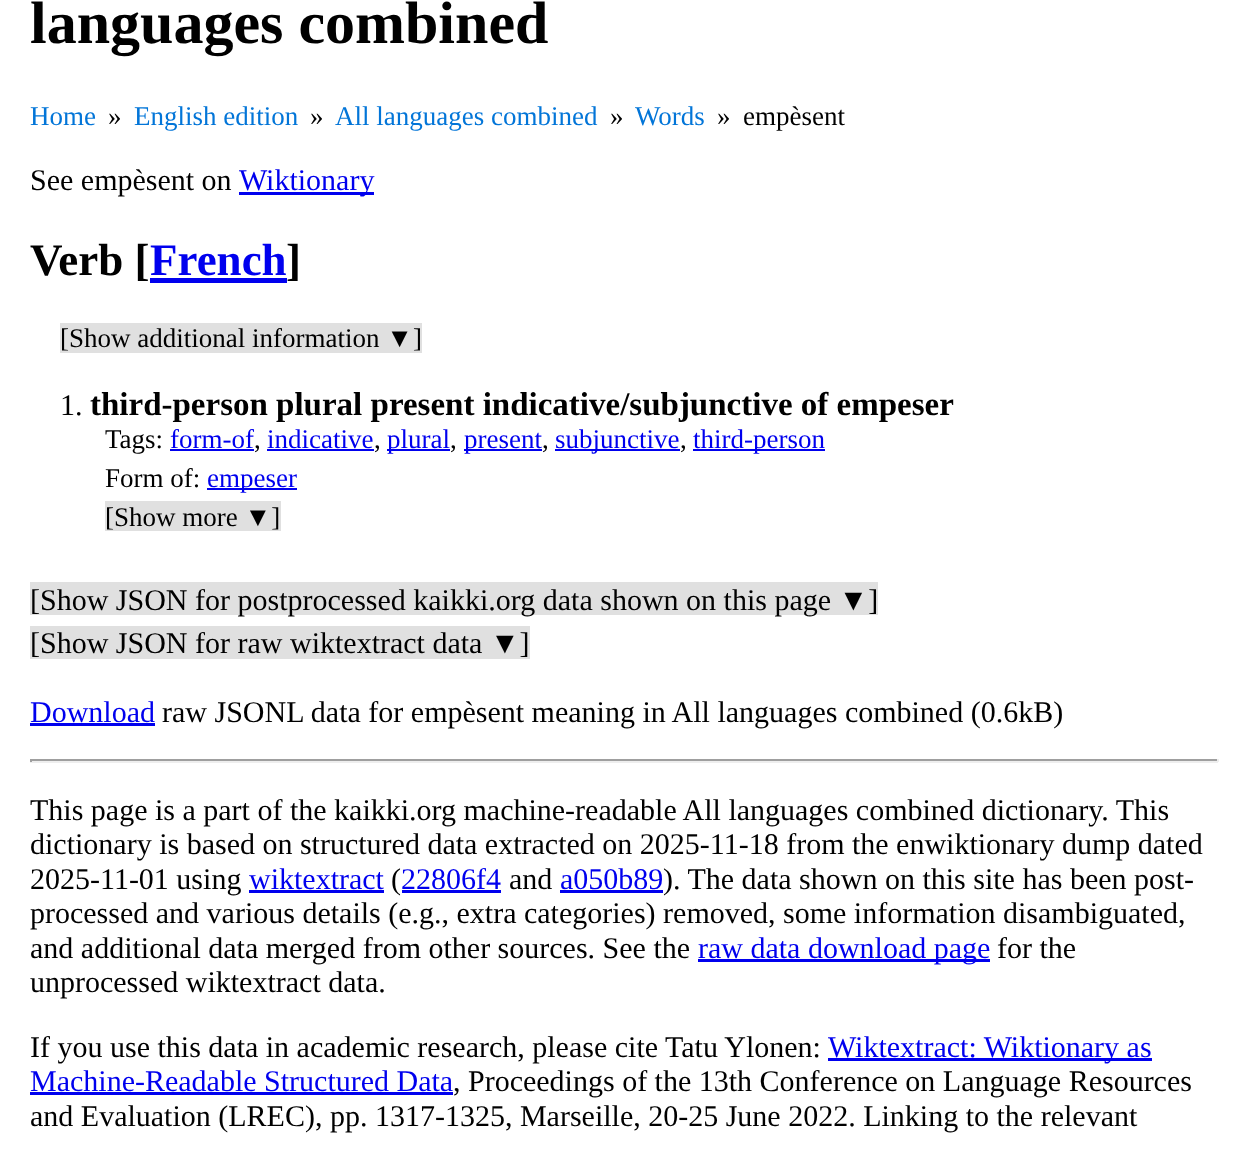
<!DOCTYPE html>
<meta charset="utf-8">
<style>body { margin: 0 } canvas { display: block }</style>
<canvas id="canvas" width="1247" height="1155"></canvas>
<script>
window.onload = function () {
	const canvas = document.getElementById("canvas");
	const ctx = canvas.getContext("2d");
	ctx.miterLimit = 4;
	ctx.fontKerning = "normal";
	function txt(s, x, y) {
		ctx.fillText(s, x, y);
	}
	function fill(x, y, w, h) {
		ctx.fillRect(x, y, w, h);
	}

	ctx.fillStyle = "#FFFFFF";
	fill(0, 0, 1247, 1155);
	ctx.fillStyle = "#0000EE";
	fill(239, 192, 135, 3);
	fill(150, 278, 137, 5);
	ctx.fillStyle = "#E0E0E0";
	fill(60, 323, 362, 30);
	ctx.fillStyle = "#0000EE";
	fill(170, 449, 84, 2);
	fill(267, 449, 107, 2);
	fill(387, 449, 63, 2);
	fill(464, 449, 78, 2);
	fill(555, 449, 125, 2);
	fill(693, 449, 132, 2);
	fill(207, 488, 90, 2);
	ctx.fillStyle = "#E0E0E0";
	fill(105, 501, 176, 30);
	fill(30, 582, 848, 33);
	fill(30, 626, 500, 33);
	ctx.fillStyle = "#0000EE";
	fill(30, 723, 125, 3);
	ctx.fillStyle = "#9F9F9F";
	fill(30, 759, 1188, 2);
	ctx.fillStyle = "#EEEEEE";
	fill(1217, 759, 2, 3);
	fill(30, 761, 1188, 2);
	ctx.fillStyle = "#9F9F9F";
	fill(30, 759, 2, 3);
	ctx.fillStyle = "#0000EE";
	fill(249, 890, 135, 3);
	fill(402, 890, 99, 3);
	fill(560, 890, 103, 3);
	fill(698, 959, 292, 3);
	fill(828, 1058, 324, 3);
	fill(30, 1092, 423, 3);
	ctx.font = "bold 60px Liberation Serif";
	ctx.fillStyle = "#000000";
	txt("languages combined", 30, 43);
	ctx.font = "27px Liberation Serif";
	ctx.fillStyle = "#0275D8";
	txt("Home", 30, 125);
	ctx.fillStyle = "#000000";
	txt("»", 108, 125);
	ctx.fillStyle = "#0275D8";
	txt("English edition", 134, 125);
	ctx.fillStyle = "#000000";
	txt("»", 310, 125);
	ctx.fillStyle = "#0275D8";
	txt("All languages combined", 335, 125);
	ctx.fillStyle = "#000000";
	txt("»", 610, 125);
	ctx.fillStyle = "#0275D8";
	txt("Words", 635, 125);
	ctx.fillStyle = "#000000";
	txt("»", 717, 125);
	txt("empèsent", 743, 125);
	ctx.font = "30px Liberation Serif";
	txt("See empèsent on", 30, 190);
	ctx.fillStyle = "#0000EE";
	txt("Wiktionary", 239, 190);
	ctx.font = "bold 45px Liberation Serif";
	ctx.fillStyle = "#000000";
	txt("Verb [", 30, 275);
	ctx.fillStyle = "#0000EE";
	txt("French", 150, 275);
	ctx.fillStyle = "#000000";
	txt("]", 286, 275);
	ctx.font = "27px Liberation Serif";
	txt("[Show additional information ▼]", 60, 347);
	ctx.font = "30px Liberation Serif";
	txt("1.", 60, 415);
	ctx.font = "bold 33px Liberation Serif";
	txt("third-person plural present indicative/subjunctive of empeser", 90, 415);
	ctx.font = "27px Liberation Serif";
	txt("Tags:", 105, 448);
	ctx.fillStyle = "#0000EE";
	txt("form-of", 170, 448);
	ctx.fillStyle = "#000000";
	txt(",", 254, 448);
	ctx.fillStyle = "#0000EE";
	txt("indicative", 267, 448);
	ctx.fillStyle = "#000000";
	txt(",", 374, 448);
	ctx.fillStyle = "#0000EE";
	txt("plural", 387, 448);
	ctx.fillStyle = "#000000";
	txt(",", 450, 448);
	ctx.fillStyle = "#0000EE";
	txt("present", 464, 448);
	ctx.fillStyle = "#000000";
	txt(",", 542, 448);
	ctx.fillStyle = "#0000EE";
	txt("subjunctive", 555, 448);
	ctx.fillStyle = "#000000";
	txt(",", 680, 448);
	ctx.fillStyle = "#0000EE";
	txt("third-person", 693, 448);
	ctx.fillStyle = "#000000";
	txt("Form of:", 105, 487);
	ctx.fillStyle = "#0000EE";
	txt("empeser", 207, 487);
	ctx.fillStyle = "#000000";
	txt("[Show more ▼]", 105, 526);
	ctx.font = "30px Liberation Serif";
	txt("[Show JSON for postprocessed kaikki.org data shown on this page ▼]", 30, 610);
	txt("[Show JSON for raw wiktextract data ▼]", 30, 653);
	ctx.fillStyle = "#0000EE";
	txt("Download", 30, 722);
	ctx.fillStyle = "#000000";
	txt("raw JSONL data for empèsent meaning in All languages combined (0.6kB)", 162, 722);
	txt("This page is a part of the kaikki.org machine-readable All languages combined dictionary. This", 30, 820);
	txt("dictionary is based on structured data extracted on 2025-11-18 from the enwiktionary dump dated", 30, 854);
	txt("2025-11-01 using", 30, 889);
	ctx.fillStyle = "#0000EE";
	txt("wiktextract", 249, 889);
	ctx.fillStyle = "#000000";
	txt("(", 391, 889);
	ctx.fillStyle = "#0000EE";
	txt("22806f4", 401, 889);
	ctx.fillStyle = "#000000";
	txt("and", 509, 889);
	ctx.fillStyle = "#0000EE";
	txt("a050b89", 560, 889);
	ctx.fillStyle = "#000000";
	txt("). The data shown on this site has been post-", 663, 889);
	txt("processed and various details (e.g., extra categories) removed, some information disambiguated,", 30, 923);
	txt("and additional data merged from other sources. See the", 30, 958);
	ctx.fillStyle = "#0000EE";
	txt("raw data download page", 698, 958);
	ctx.fillStyle = "#000000";
	txt("for the", 997, 958);
	txt("unprocessed wiktextract data.", 30, 992);
	txt("If you use this data in academic research, please cite Tatu Ylonen:", 30, 1057);
	ctx.fillStyle = "#0000EE";
	txt("Wiktextract: Wiktionary as", 828, 1057);
	txt("Machine-Readable Structured Data", 30, 1091);
	ctx.fillStyle = "#000000";
	txt(", Proceedings of the 13th Conference on Language Resources", 453, 1091);
	txt("and Evaluation (LREC), pp. 1317-1325, Marseille, 20-25 June 2022. Linking to the relevant", 30, 1126);
};
</script>
